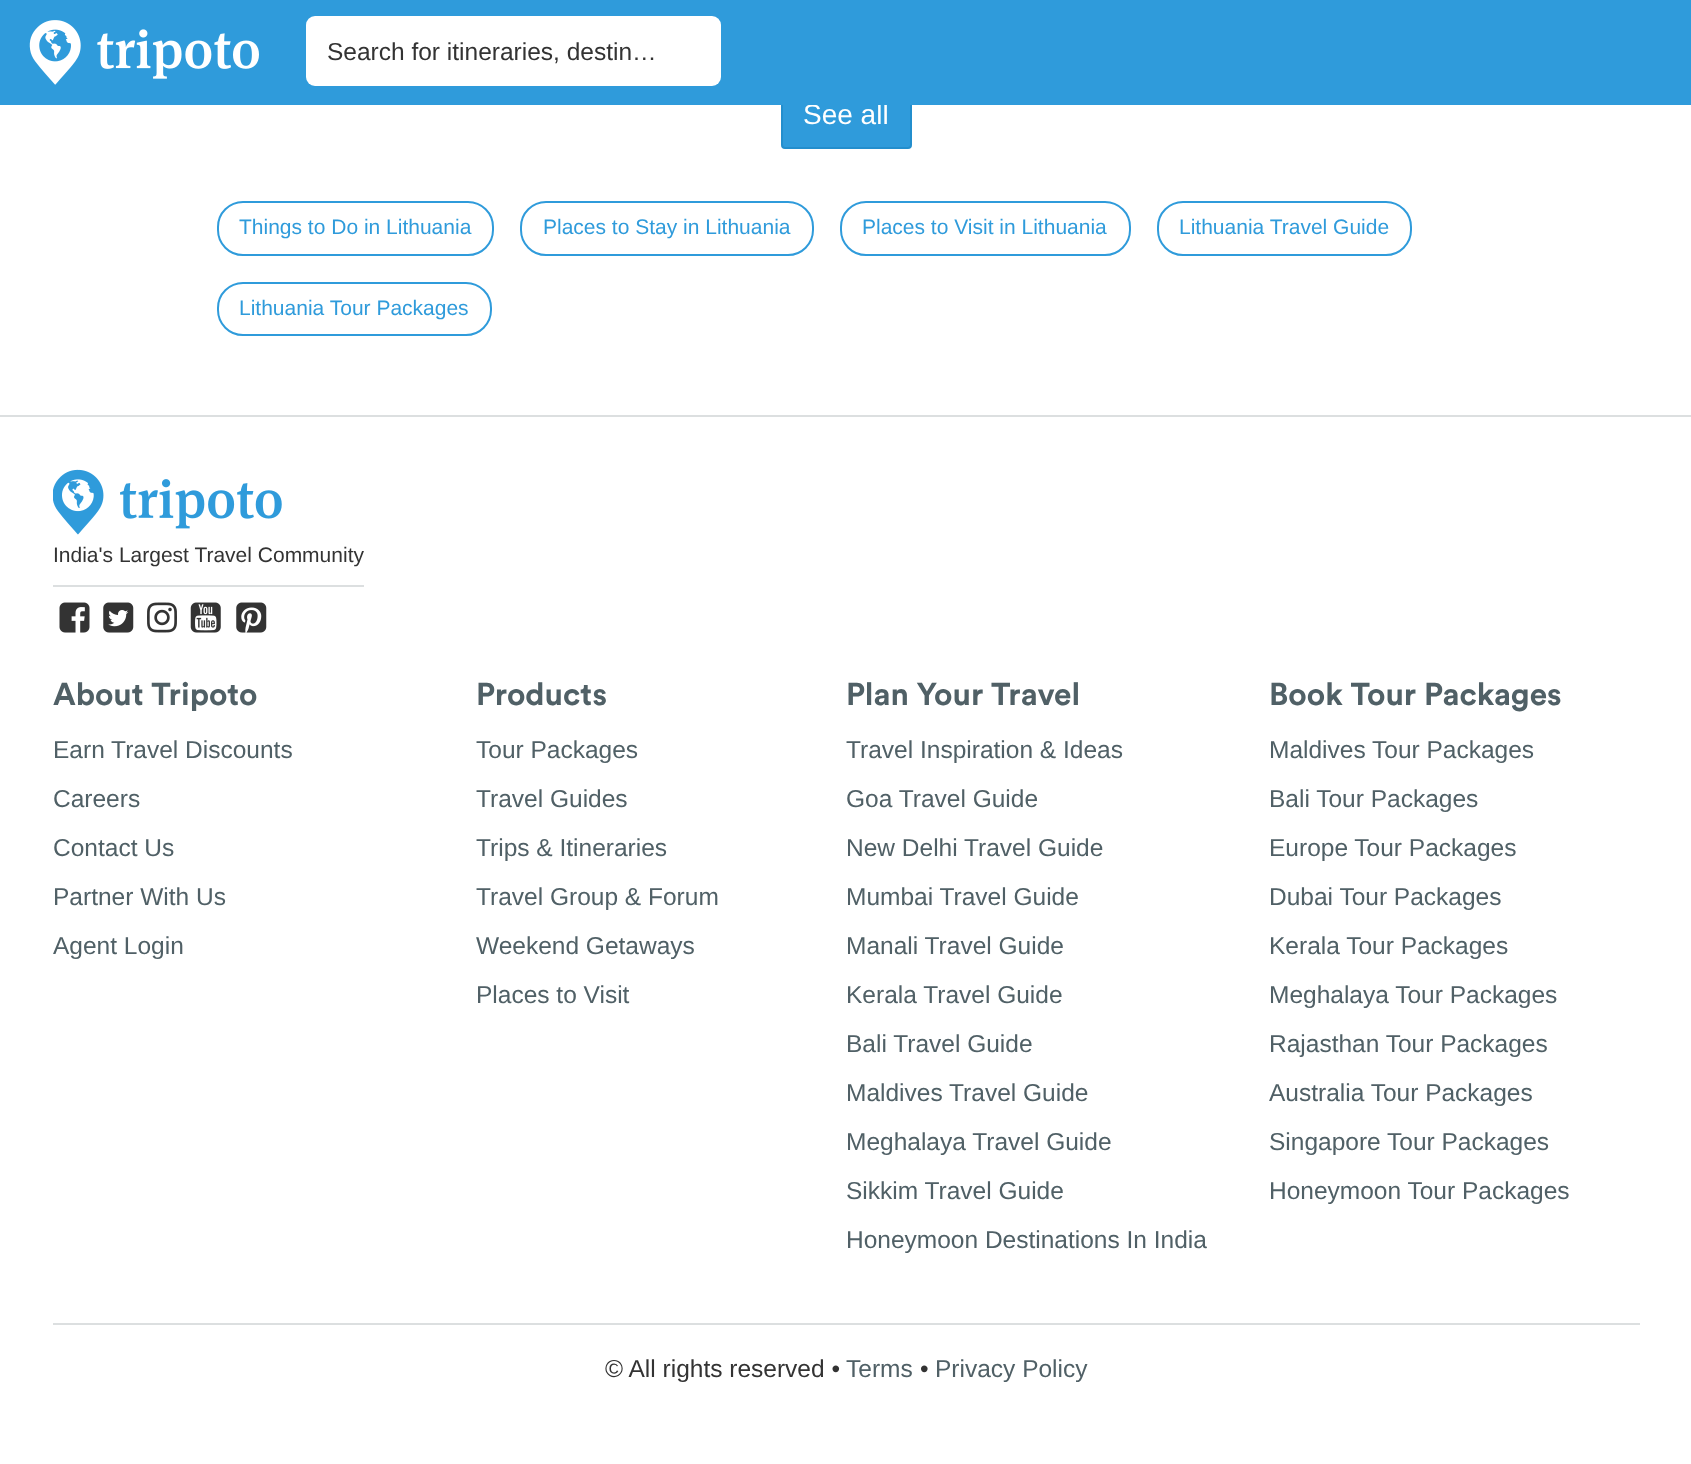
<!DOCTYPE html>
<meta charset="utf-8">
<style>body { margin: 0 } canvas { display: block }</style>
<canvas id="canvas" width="1691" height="1464"></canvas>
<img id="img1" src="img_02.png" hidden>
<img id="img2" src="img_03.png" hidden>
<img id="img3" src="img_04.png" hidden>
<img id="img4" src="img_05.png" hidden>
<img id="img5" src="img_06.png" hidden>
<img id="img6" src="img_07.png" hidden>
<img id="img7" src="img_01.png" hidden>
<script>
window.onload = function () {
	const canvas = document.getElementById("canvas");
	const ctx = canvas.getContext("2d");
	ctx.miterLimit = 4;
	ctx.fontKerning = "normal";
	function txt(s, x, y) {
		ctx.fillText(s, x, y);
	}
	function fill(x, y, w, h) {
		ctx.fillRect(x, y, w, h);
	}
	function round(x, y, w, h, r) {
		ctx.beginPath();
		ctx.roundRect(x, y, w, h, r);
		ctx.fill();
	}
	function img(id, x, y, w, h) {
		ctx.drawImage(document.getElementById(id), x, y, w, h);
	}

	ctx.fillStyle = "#FFFFFF";
	fill(0, 0, 1691, 1464);
	ctx.fillStyle = "#2F9BDB";
	ctx.beginPath();
	ctx.roundRect(782, 85, 129, 63, 3);
	ctx.fill();
	ctx.strokeStyle = "#238ECD";
	ctx.lineWidth = 2;
	ctx.stroke();
	ctx.beginPath();
	ctx.roundRect(218, 202, 275, 53, 25);
	ctx.strokeStyle = "#2F9BDB";
	ctx.stroke();
	ctx.beginPath();
	ctx.roundRect(521, 202, 292, 53, 25);
	ctx.stroke();
	ctx.beginPath();
	ctx.roundRect(841, 202, 289, 53, 25);
	ctx.stroke();
	ctx.beginPath();
	ctx.roundRect(1158, 202, 253, 53, 25);
	ctx.stroke();
	ctx.beginPath();
	ctx.roundRect(218, 283, 273, 52, 25);
	ctx.stroke();
	ctx.fillStyle = "#DCDFE0";
	fill(0, 415, 1691, 2);
	img("img1", 53, 469, 229, 66);
	fill(53, 585, 311, 2);
	img("img2", 59, 602, 31, 31);
	img("img3", 103, 602, 31, 31);
	img("img4", 147, 602, 30, 31);
	img("img5", 190, 602, 31, 31);
	img("img6", 236, 602, 31, 31);
	fill(53, 1323, 1587, 2);
	ctx.font = "28px Liberation Sans";
	ctx.fillStyle = "#FFFFFF";
	txt("See all", 803, 124);
	ctx.fillStyle = "#2F9BDB";
	fill(0, 0, 1691, 105);
	ctx.fillStyle = "#FFFFFF";
	round(306, 16, 415, 70, 9);
	ctx.font = "24.5px Liberation Sans";
	ctx.fillStyle = "#333333";
	txt("Search for itineraries, destin…", 327, 60);
	img("img7", 29, 20, 230, 65);
	ctx.font = "21px Liberation Sans";
	ctx.fillStyle = "#2F9BDB";
	txt("Things to Do in Lithuania", 239, 234);
	txt("Places to Stay in Lithuania", 543, 234);
	txt("Places to Visit in Lithuania", 862, 234);
	txt("Lithuania Travel Guide", 1179, 234);
	txt("Lithuania Tour Packages", 239, 315);
	ctx.fillStyle = "#333333";
	txt("India's Largest Travel Community", 53, 562);
	ctx.font = "bold 31.5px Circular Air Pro";
	ctx.fillStyle = "#506066";
	txt("About Tripoto", 53, 705);
	ctx.font = "24.5px Liberation Sans";
	txt("Earn Travel Discounts", 53, 758);
	txt("Careers", 53, 807);
	txt("Contact Us", 53, 856);
	txt("Partner With Us", 53, 905);
	txt("Agent Login", 53, 954);
	ctx.font = "bold 31.5px Circular Air Pro";
	txt("Products", 476, 705);
	ctx.font = "24.5px Liberation Sans";
	txt("Tour Packages", 476, 758);
	txt("Travel Guides", 476, 807);
	txt("Trips & Itineraries", 476, 856);
	txt("Travel Group & Forum", 476, 905);
	txt("Weekend Getaways", 476, 954);
	txt("Places to Visit", 476, 1003);
	ctx.font = "bold 31.5px Circular Air Pro";
	txt("Plan Your Travel", 846, 705);
	ctx.font = "24.5px Liberation Sans";
	txt("Travel Inspiration & Ideas", 846, 758);
	txt("Goa Travel Guide", 846, 807);
	txt("New Delhi Travel Guide", 846, 856);
	txt("Mumbai Travel Guide", 846, 905);
	txt("Manali Travel Guide", 846, 954);
	txt("Kerala Travel Guide", 846, 1003);
	txt("Bali Travel Guide", 846, 1052);
	txt("Maldives Travel Guide", 846, 1101);
	txt("Meghalaya Travel Guide", 846, 1150);
	txt("Sikkim Travel Guide", 846, 1199);
	txt("Honeymoon Destinations In India", 846, 1248);
	ctx.font = "bold 31.5px Circular Air Pro";
	txt("Book Tour Packages", 1269, 705);
	ctx.font = "24.5px Liberation Sans";
	txt("Maldives Tour Packages", 1269, 758);
	txt("Bali Tour Packages", 1269, 807);
	txt("Europe Tour Packages", 1269, 856);
	txt("Dubai Tour Packages", 1269, 905);
	txt("Kerala Tour Packages", 1269, 954);
	txt("Meghalaya Tour Packages", 1269, 1003);
	txt("Rajasthan Tour Packages", 1269, 1052);
	txt("Australia Tour Packages", 1269, 1101);
	txt("Singapore Tour Packages", 1269, 1150);
	txt("Honeymoon Tour Packages", 1269, 1199);
	ctx.fillStyle = "#333333";
	txt("© All rights reserved •", 605, 1377);
	ctx.fillStyle = "#506066";
	txt("Terms", 846, 1377);
	ctx.fillStyle = "#333333";
	txt("•", 920, 1377);
	ctx.fillStyle = "#506066";
	txt("Privacy Policy", 935, 1377);
};
</script>
